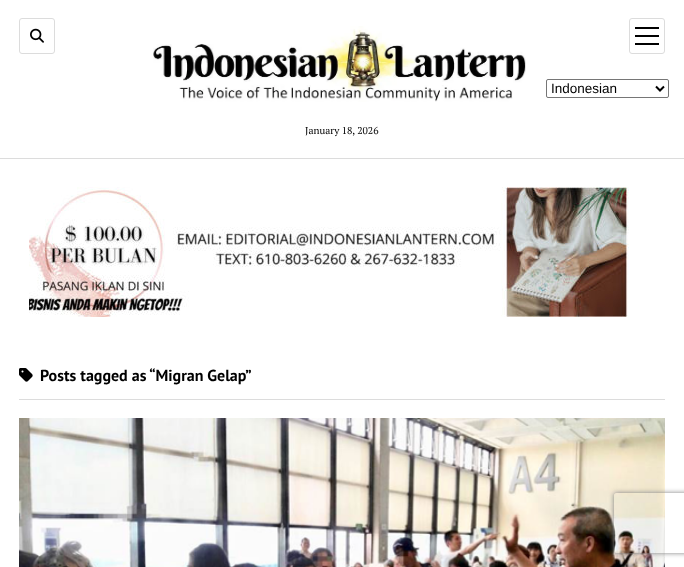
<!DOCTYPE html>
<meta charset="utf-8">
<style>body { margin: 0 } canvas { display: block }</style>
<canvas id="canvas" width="684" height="567"></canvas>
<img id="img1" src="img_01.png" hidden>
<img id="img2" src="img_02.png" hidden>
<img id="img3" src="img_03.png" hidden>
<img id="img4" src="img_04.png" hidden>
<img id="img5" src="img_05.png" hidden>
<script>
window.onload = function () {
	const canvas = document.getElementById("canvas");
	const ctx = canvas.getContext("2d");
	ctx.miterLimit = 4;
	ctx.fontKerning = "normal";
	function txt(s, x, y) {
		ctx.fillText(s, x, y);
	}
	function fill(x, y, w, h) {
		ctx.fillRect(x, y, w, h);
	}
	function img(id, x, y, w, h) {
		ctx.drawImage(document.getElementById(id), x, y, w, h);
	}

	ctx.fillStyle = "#FFFFFF";
	fill(0, 0, 684, 567);
	ctx.beginPath();
	ctx.roundRect(546.5, 79.5, 122, 18, 1.5);
	ctx.strokeStyle = "#767676";
	ctx.stroke();
	ctx.beginPath();
	ctx.moveTo(656, 86.5);
	ctx.lineTo(660, 90.5);
	ctx.lineTo(664, 86.5);
	ctx.strokeStyle = "#000000";
	ctx.lineWidth = 2;
	ctx.stroke();
	ctx.fillStyle = "#DCDCDC";
	fill(0, 158, 684, 1);
	ctx.beginPath();
	ctx.roundRect(19.5, 18.5, 35, 35, 2.5);
	ctx.strokeStyle = "#DCDCDC";
	ctx.lineWidth = 1;
	ctx.stroke();
	img("img1", 30, 28, 14, 15);
	ctx.beginPath();
	ctx.roundRect(629.5, 18.5, 35, 35, 2.5);
	ctx.stroke();
	ctx.fillStyle = "#000000";
	fill(635, 27, 24, 2);
	fill(635, 35, 24, 2);
	fill(635, 43, 24, 2);
	img("img2", 153, 26, 373, 76);
	img("img3", 29, 187, 600, 130);
	ctx.fillStyle = "#DCDCDC";
	fill(19, 399, 646, 1);
	img("img4", 19, 368, 14, 14);
	img("img5", 19, 418, 646, 149);
	ctx.save();
	ctx.beginPath();
	ctx.moveTo(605, 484);
	ctx.lineTo(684, 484);
	ctx.lineTo(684, 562);
	ctx.lineTo(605, 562);
	ctx.closePath();
	ctx.moveTo(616, 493);
	ctx.lineTo(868, 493);
	ctx.bezierCurveTo(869, 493, 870, 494, 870, 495);
	ctx.lineTo(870, 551);
	ctx.bezierCurveTo(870, 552, 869, 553, 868, 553);
	ctx.lineTo(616, 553);
	ctx.bezierCurveTo(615, 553, 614, 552, 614, 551);
	ctx.lineTo(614, 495);
	ctx.bezierCurveTo(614, 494, 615, 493, 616, 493);
	ctx.closePath();
	ctx.clip("evenodd");
	ctx.fillStyle = "#808080";
	ctx.filter = "blur(2.5px)";
	ctx.beginPath();
	ctx.roundRect(614, 493, 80, 60, 2);
	ctx.fill();
	ctx.filter = "none";
	ctx.restore();
	ctx.font = "13.5px Liberation Sans";
	ctx.fillStyle = "#000000";
	txt("Indonesian", 551, 93);
	ctx.font = "10px PT Serif";
	txt("January 18, 2026", 305, 134);
	ctx.font = "bold 16px PT Sans";
	txt("Posts tagged as “Migran Gelap”", 40, 381);
};
</script>
